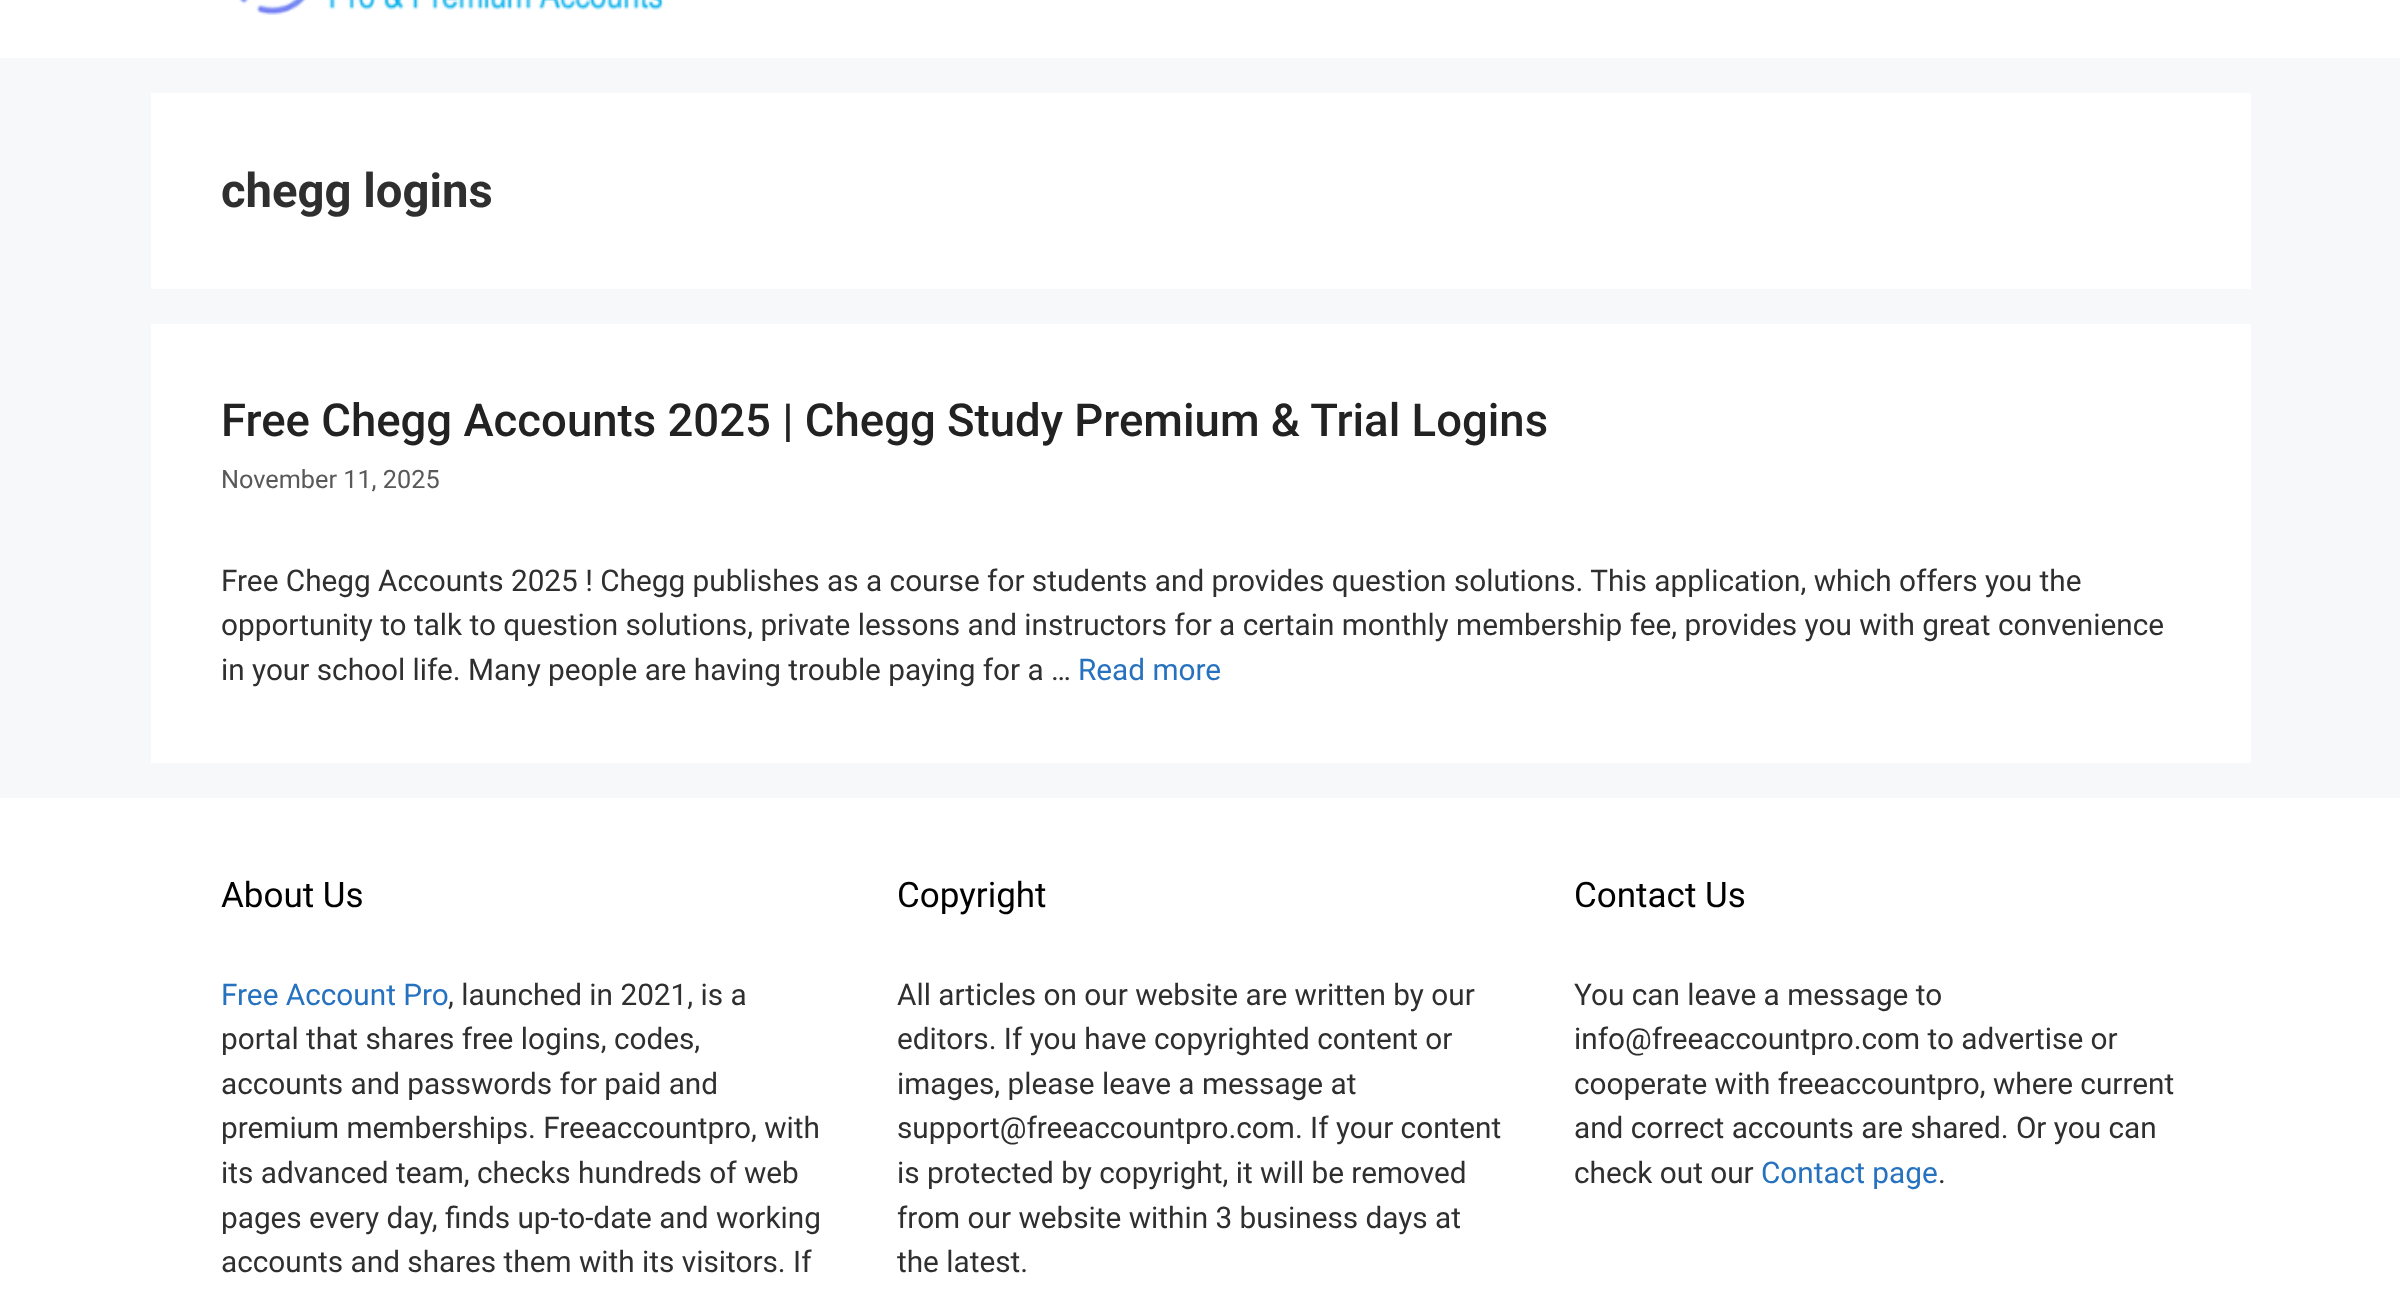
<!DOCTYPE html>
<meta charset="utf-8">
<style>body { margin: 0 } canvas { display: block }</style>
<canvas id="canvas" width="2400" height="1303"></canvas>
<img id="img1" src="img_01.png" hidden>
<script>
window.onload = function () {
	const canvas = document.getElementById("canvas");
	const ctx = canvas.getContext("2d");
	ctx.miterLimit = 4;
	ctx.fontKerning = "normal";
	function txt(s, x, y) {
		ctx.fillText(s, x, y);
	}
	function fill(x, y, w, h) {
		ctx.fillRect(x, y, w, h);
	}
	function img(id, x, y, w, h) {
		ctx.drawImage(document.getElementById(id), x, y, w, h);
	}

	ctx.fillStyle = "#F7F8F9";
	fill(0, 0, 2400, 1303);
	ctx.fillStyle = "#FFFFFF";
	fill(0, 0, 2400, 58);
	img("img1", 239, 0, 425, 16);
	fill(151, 93, 2100, 196);
	fill(151, 324, 2100, 439);
	fill(0, 798, 2400, 505);
	ctx.font = "bold 47.25px Roboto";
	ctx.fillStyle = "#2F2F2F";
	txt("chegg logins", 221, 207);
	ctx.font = "500 45.5px Roboto";
	ctx.fillStyle = "#222222";
	txt("Free Chegg Accounts 2025 | Chegg Study Premium & Trial Logins", 221, 436);
	ctx.font = "25.25px Roboto";
	ctx.fillStyle = "#595959";
	txt("November 11, 2025", 221, 488);
	ctx.font = "29.75px Roboto";
	ctx.fillStyle = "#2F2F2F";
	txt("Free Chegg Accounts 2025 ! Chegg publishes as a course for students and provides question solutions. This application, which offers you the", 221, 591);
	txt("opportunity to talk to question solutions, private lessons and instructors for a certain monthly membership fee, provides you with great convenience", 221, 635);
	txt("in your school life. Many people are having trouble paying for a …", 221, 680);
	ctx.fillStyle = "#2672BF";
	txt("Read more", 1078, 680);
	ctx.font = "35px Roboto";
	ctx.fillStyle = "#000000";
	txt("About Us", 221, 907);
	ctx.font = "29.75px Roboto";
	ctx.fillStyle = "#2672BF";
	txt("Free Account Pro", 221, 1005);
	ctx.fillStyle = "#2F2F2F";
	txt(", launched in 2021, is a", 448, 1005);
	txt("portal that shares free logins, codes,", 221, 1049);
	txt("accounts and passwords for paid and", 221, 1094);
	txt("premium memberships. Freeaccountpro, with", 221, 1138);
	txt("its advanced team, checks hundreds of web", 221, 1183);
	txt("pages every day, finds up-to-date and working", 221, 1228);
	txt("accounts and shares them with its visitors. If", 221, 1272);
	ctx.font = "35px Roboto";
	ctx.fillStyle = "#000000";
	txt("Copyright", 897, 907);
	ctx.font = "29.75px Roboto";
	ctx.fillStyle = "#2F2F2F";
	txt("All articles on our website are written by our", 897, 1005);
	txt("editors. If you have copyrighted content or", 897, 1049);
	txt("images, please leave a message at", 897, 1094);
	txt("support@freeaccountpro.com. If your content", 897, 1138);
	txt("is protected by copyright, it will be removed", 897, 1183);
	txt("from our website within 3 business days at", 897, 1228);
	txt("the latest.", 897, 1272);
	ctx.font = "35px Roboto";
	ctx.fillStyle = "#000000";
	txt("Contact Us", 1574, 907);
	ctx.font = "29.75px Roboto";
	ctx.fillStyle = "#2F2F2F";
	txt("You can leave a message to", 1574, 1005);
	txt("info@freeaccountpro.com to advertise or", 1574, 1049);
	txt("cooperate with freeaccountpro, where current", 1574, 1094);
	txt("and correct accounts are shared. Or you can", 1574, 1138);
	txt("check out our", 1574, 1183);
	ctx.fillStyle = "#2672BF";
	txt("Contact page", 1761, 1183);
	ctx.fillStyle = "#2F2F2F";
	txt(".", 1938, 1183);
};
</script>
